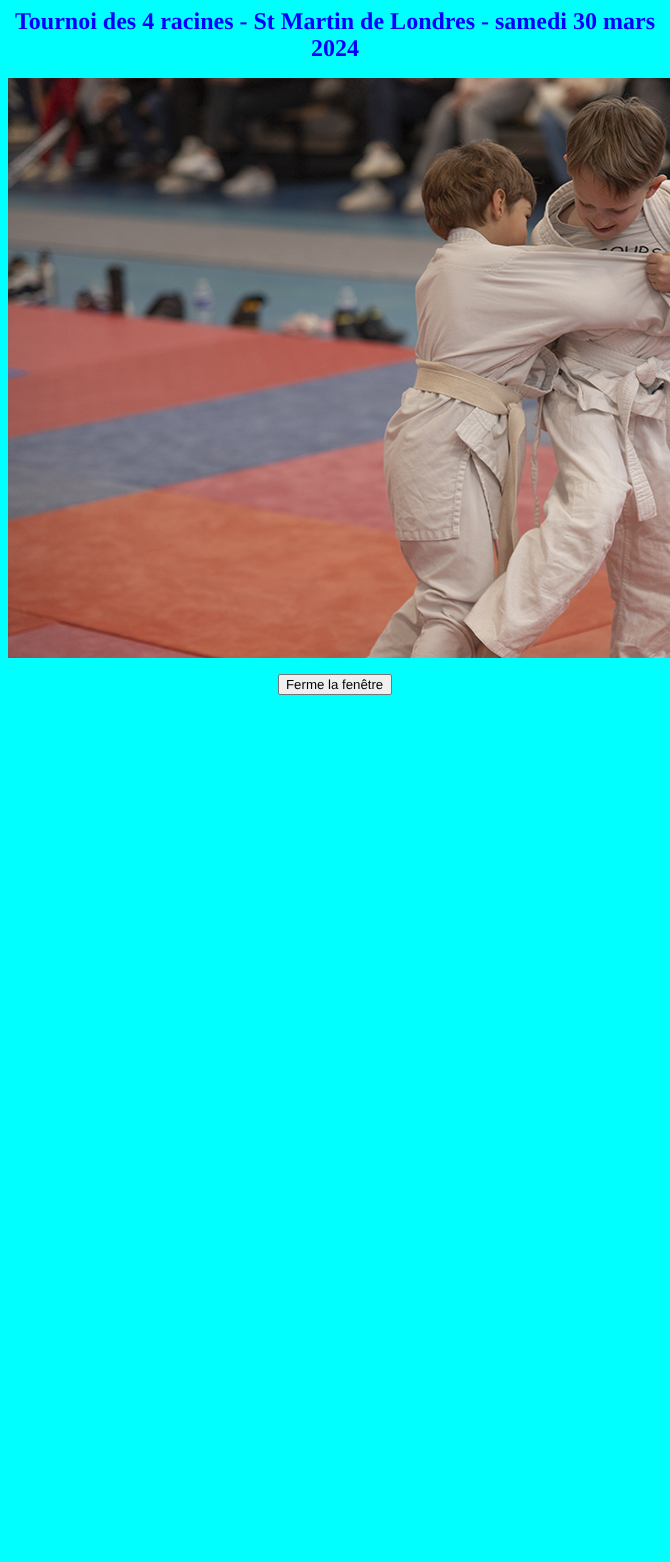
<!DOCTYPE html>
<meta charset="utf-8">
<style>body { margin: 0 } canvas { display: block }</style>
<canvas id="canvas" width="670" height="1562"></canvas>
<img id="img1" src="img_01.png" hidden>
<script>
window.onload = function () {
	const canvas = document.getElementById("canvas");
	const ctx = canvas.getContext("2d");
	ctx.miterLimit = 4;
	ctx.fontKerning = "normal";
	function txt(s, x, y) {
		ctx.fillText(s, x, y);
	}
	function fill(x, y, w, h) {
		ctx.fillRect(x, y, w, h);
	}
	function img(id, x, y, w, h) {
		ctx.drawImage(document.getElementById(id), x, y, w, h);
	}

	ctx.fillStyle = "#00FFFF";
	fill(0, 0, 670, 1562);
	img("img1", 8, 78, 662, 580);
	ctx.fillStyle = "#EFEFEF";
	ctx.beginPath();
	ctx.roundRect(278.5, 674.5, 113, 20, 1.5);
	ctx.fill();
	ctx.strokeStyle = "#767676";
	ctx.stroke();
	ctx.font = "bold 24px Liberation Serif";
	ctx.fillStyle = "#0000FF";
	txt("Tournoi des 4 racines - St Martin de Londres - samedi 30 mars", 15, 29);
	txt("2024", 311, 56);
	ctx.font = "13.25px Liberation Sans";
	ctx.fillStyle = "#000000";
	txt("Ferme la fenêtre", 286, 689);
};
</script>
